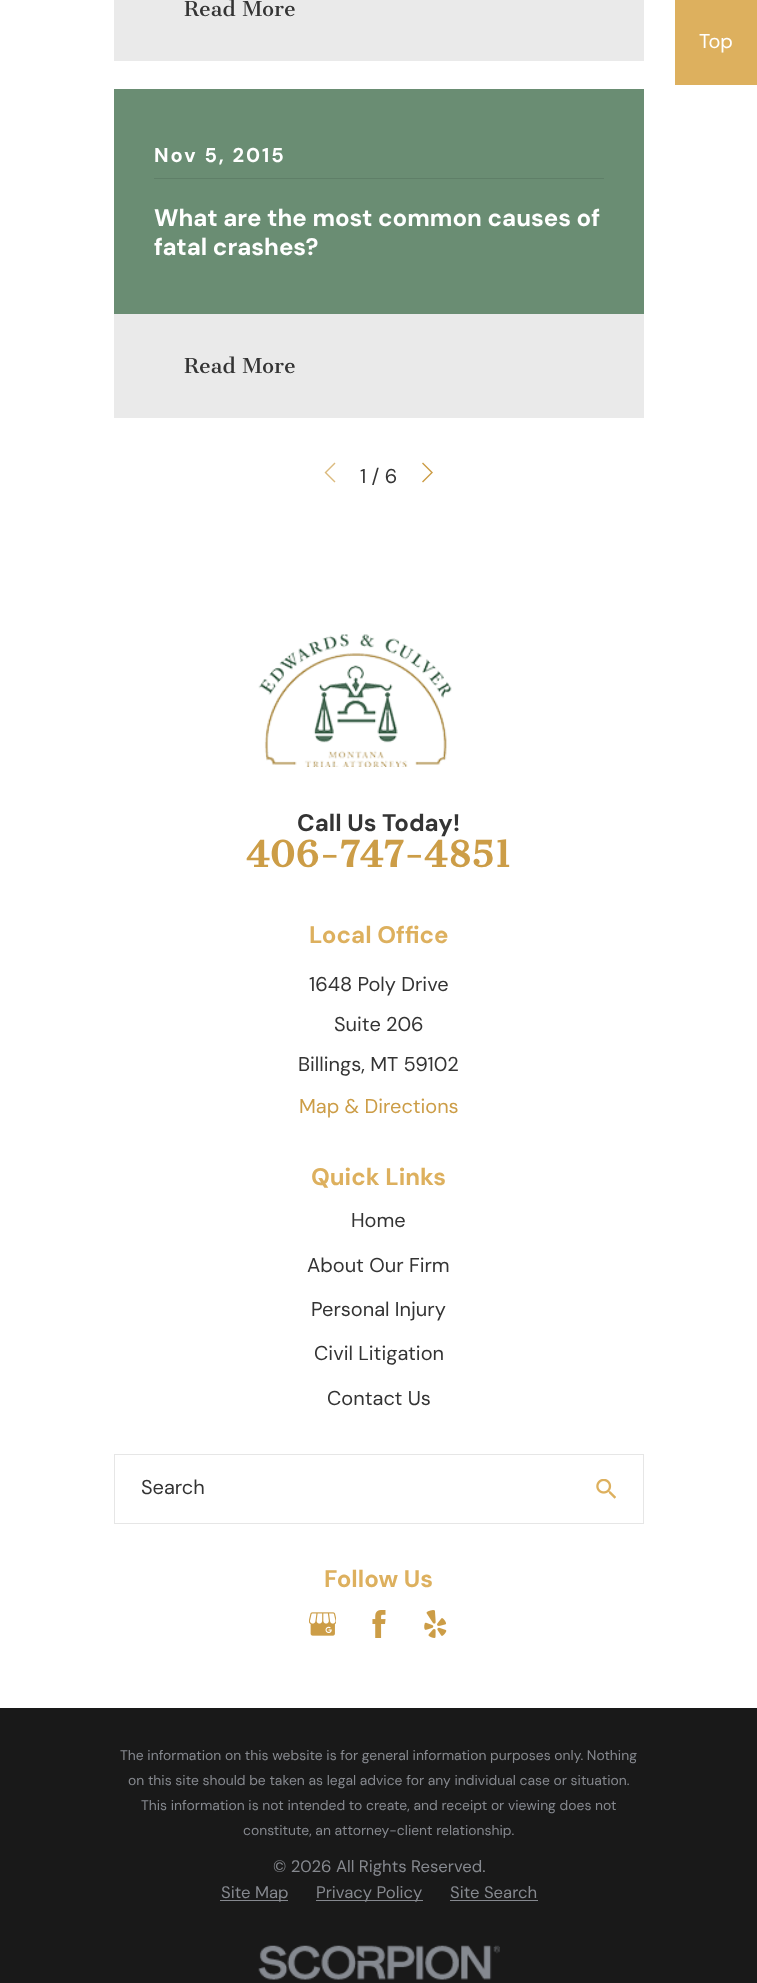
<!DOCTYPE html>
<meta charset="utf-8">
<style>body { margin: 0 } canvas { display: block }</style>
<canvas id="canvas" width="757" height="1983"></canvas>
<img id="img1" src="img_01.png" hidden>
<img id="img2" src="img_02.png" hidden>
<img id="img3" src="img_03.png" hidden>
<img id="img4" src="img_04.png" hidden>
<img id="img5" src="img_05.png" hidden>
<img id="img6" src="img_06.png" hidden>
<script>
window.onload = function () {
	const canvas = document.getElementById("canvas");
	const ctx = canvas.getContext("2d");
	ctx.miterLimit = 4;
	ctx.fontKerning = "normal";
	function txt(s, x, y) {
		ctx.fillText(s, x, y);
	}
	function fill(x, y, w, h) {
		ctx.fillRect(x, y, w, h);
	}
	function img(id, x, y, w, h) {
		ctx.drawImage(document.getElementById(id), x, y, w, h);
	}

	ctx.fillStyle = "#FFFFFF";
	fill(0, 0, 757, 1983);
	ctx.fillStyle = "#EAEAEA";
	fill(114, 0, 530, 61);
	ctx.fillStyle = "#6A8D73";
	fill(114, 89, 530, 225);
	ctx.fillStyle = "#5F7F68";
	fill(154, 178, 450, 1);
	ctx.fillStyle = "#EAEAEA";
	fill(114, 314, 530, 104);
	ctx.fillStyle = "#DBBA7E";
	ctx.beginPath();
	ctx.moveTo(334.5, 482.5);
	ctx.lineTo(324.5, 472.5);
	ctx.lineTo(334.5, 462.5);
	ctx.lineTo(335.5, 463.5);
	ctx.lineTo(326.5, 472.5);
	ctx.lineTo(335.5, 481.5);
	ctx.closePath();
	ctx.fill();
	ctx.fillStyle = "#CC9D47";
	ctx.beginPath();
	ctx.moveTo(423, 462.5);
	ctx.lineTo(433, 472.5);
	ctx.lineTo(423, 482.5);
	ctx.lineTo(422, 481.5);
	ctx.lineTo(431, 472.5);
	ctx.lineTo(422, 463.5);
	ctx.closePath();
	ctx.fill();
	ctx.fillStyle = "#DDB05E";
	fill(675, 0, 82, 85);
	img("img1", 258, 634, 194, 133);
	ctx.strokeStyle = "#E6E6E6";
	ctx.strokeRect(114.5, 1454.5, 529, 69);
	img("img2", 596, 1479, 20, 20);
	img("img3", 309, 1612, 27, 24);
	img("img4", 372, 1610, 14, 28);
	img("img5", 424, 1610, 23, 28);
	ctx.fillStyle = "#191919";
	fill(0, 1708, 757, 275);
	ctx.fillStyle = "#86898F";
	fill(220, 1900, 68, 1);
	fill(316, 1900, 107, 1);
	fill(450, 1900, 88, 1);
	img("img6", 258, 1945, 242, 35);
	ctx.font = "20px Cantata One";
	ctx.fillStyle = "#343434";
	txt("Read More", 184, 16);
	ctx.letterSpacing = "2px";
	ctx.font = "bold 20px DM Sans";
	ctx.fillStyle = "#FFFFFF";
	txt("Nov 5, 2015", 154, 162);
	ctx.letterSpacing = "0px";
	ctx.font = "bold 24px DM Sans";
	txt("What are the most common causes of", 154, 226);
	txt("fatal crashes?", 154, 255);
	ctx.font = "20px Cantata One";
	ctx.fillStyle = "#343434";
	txt("Read More", 184, 373);
	ctx.font = "20px DM Sans";
	txt("1 / 6", 360, 483);
	ctx.fillStyle = "#FFFFFF";
	txt("Top", 699, 48);
	ctx.font = "bold 24px DM Sans";
	ctx.fillStyle = "#343434";
	txt("Call Us Today!", 297, 831);
	ctx.font = "bold 35px Cantata One";
	ctx.fillStyle = "#CC9D47";
	txt("406-747-4851", 246, 867);
	ctx.font = "bold 24px DM Sans";
	ctx.fillStyle = "#DDB05E";
	txt("Local Office", 309, 943);
	ctx.font = "20px DM Sans";
	ctx.fillStyle = "#343434";
	txt("1648 Poly Drive", 309, 991);
	txt("Suite 206", 334, 1031);
	txt("Billings, MT 59102", 298, 1071);
	ctx.fillStyle = "#CC9D47";
	txt("Map & Directions", 299, 1113);
	ctx.font = "bold 24px DM Sans";
	ctx.fillStyle = "#DDB05E";
	txt("Quick Links", 311, 1185);
	ctx.font = "20px DM Sans";
	ctx.fillStyle = "#343434";
	txt("Home", 351, 1227);
	txt("About Our Firm", 307, 1272);
	txt("Personal Injury", 311, 1316);
	txt("Civil Litigation", 314, 1360);
	txt("Contact Us", 327, 1405);
	txt("Search", 141, 1494);
	ctx.font = "bold 24px DM Sans";
	ctx.fillStyle = "#DDB05E";
	txt("Follow Us", 324, 1587);
	ctx.font = "13.9px DM Sans";
	ctx.fillStyle = "#86898F";
	txt("The information on this website is for general information purposes only. Nothing", 120, 1760);
	txt("on this site should be taken as legal advice for any individual case or situation.", 128, 1785);
	txt("This information is not intended to create, and receipt or viewing does not", 141, 1810);
	txt("constitute, an attorney-client relationship.", 243, 1835);
	ctx.font = "16.7px DM Sans";
	txt("© 2026 All Rights Reserved.", 273, 1872);
	txt("Site Map", 221, 1898);
	txt("Privacy Policy", 316, 1898);
	txt("Site Search", 450, 1898);
};
</script>
